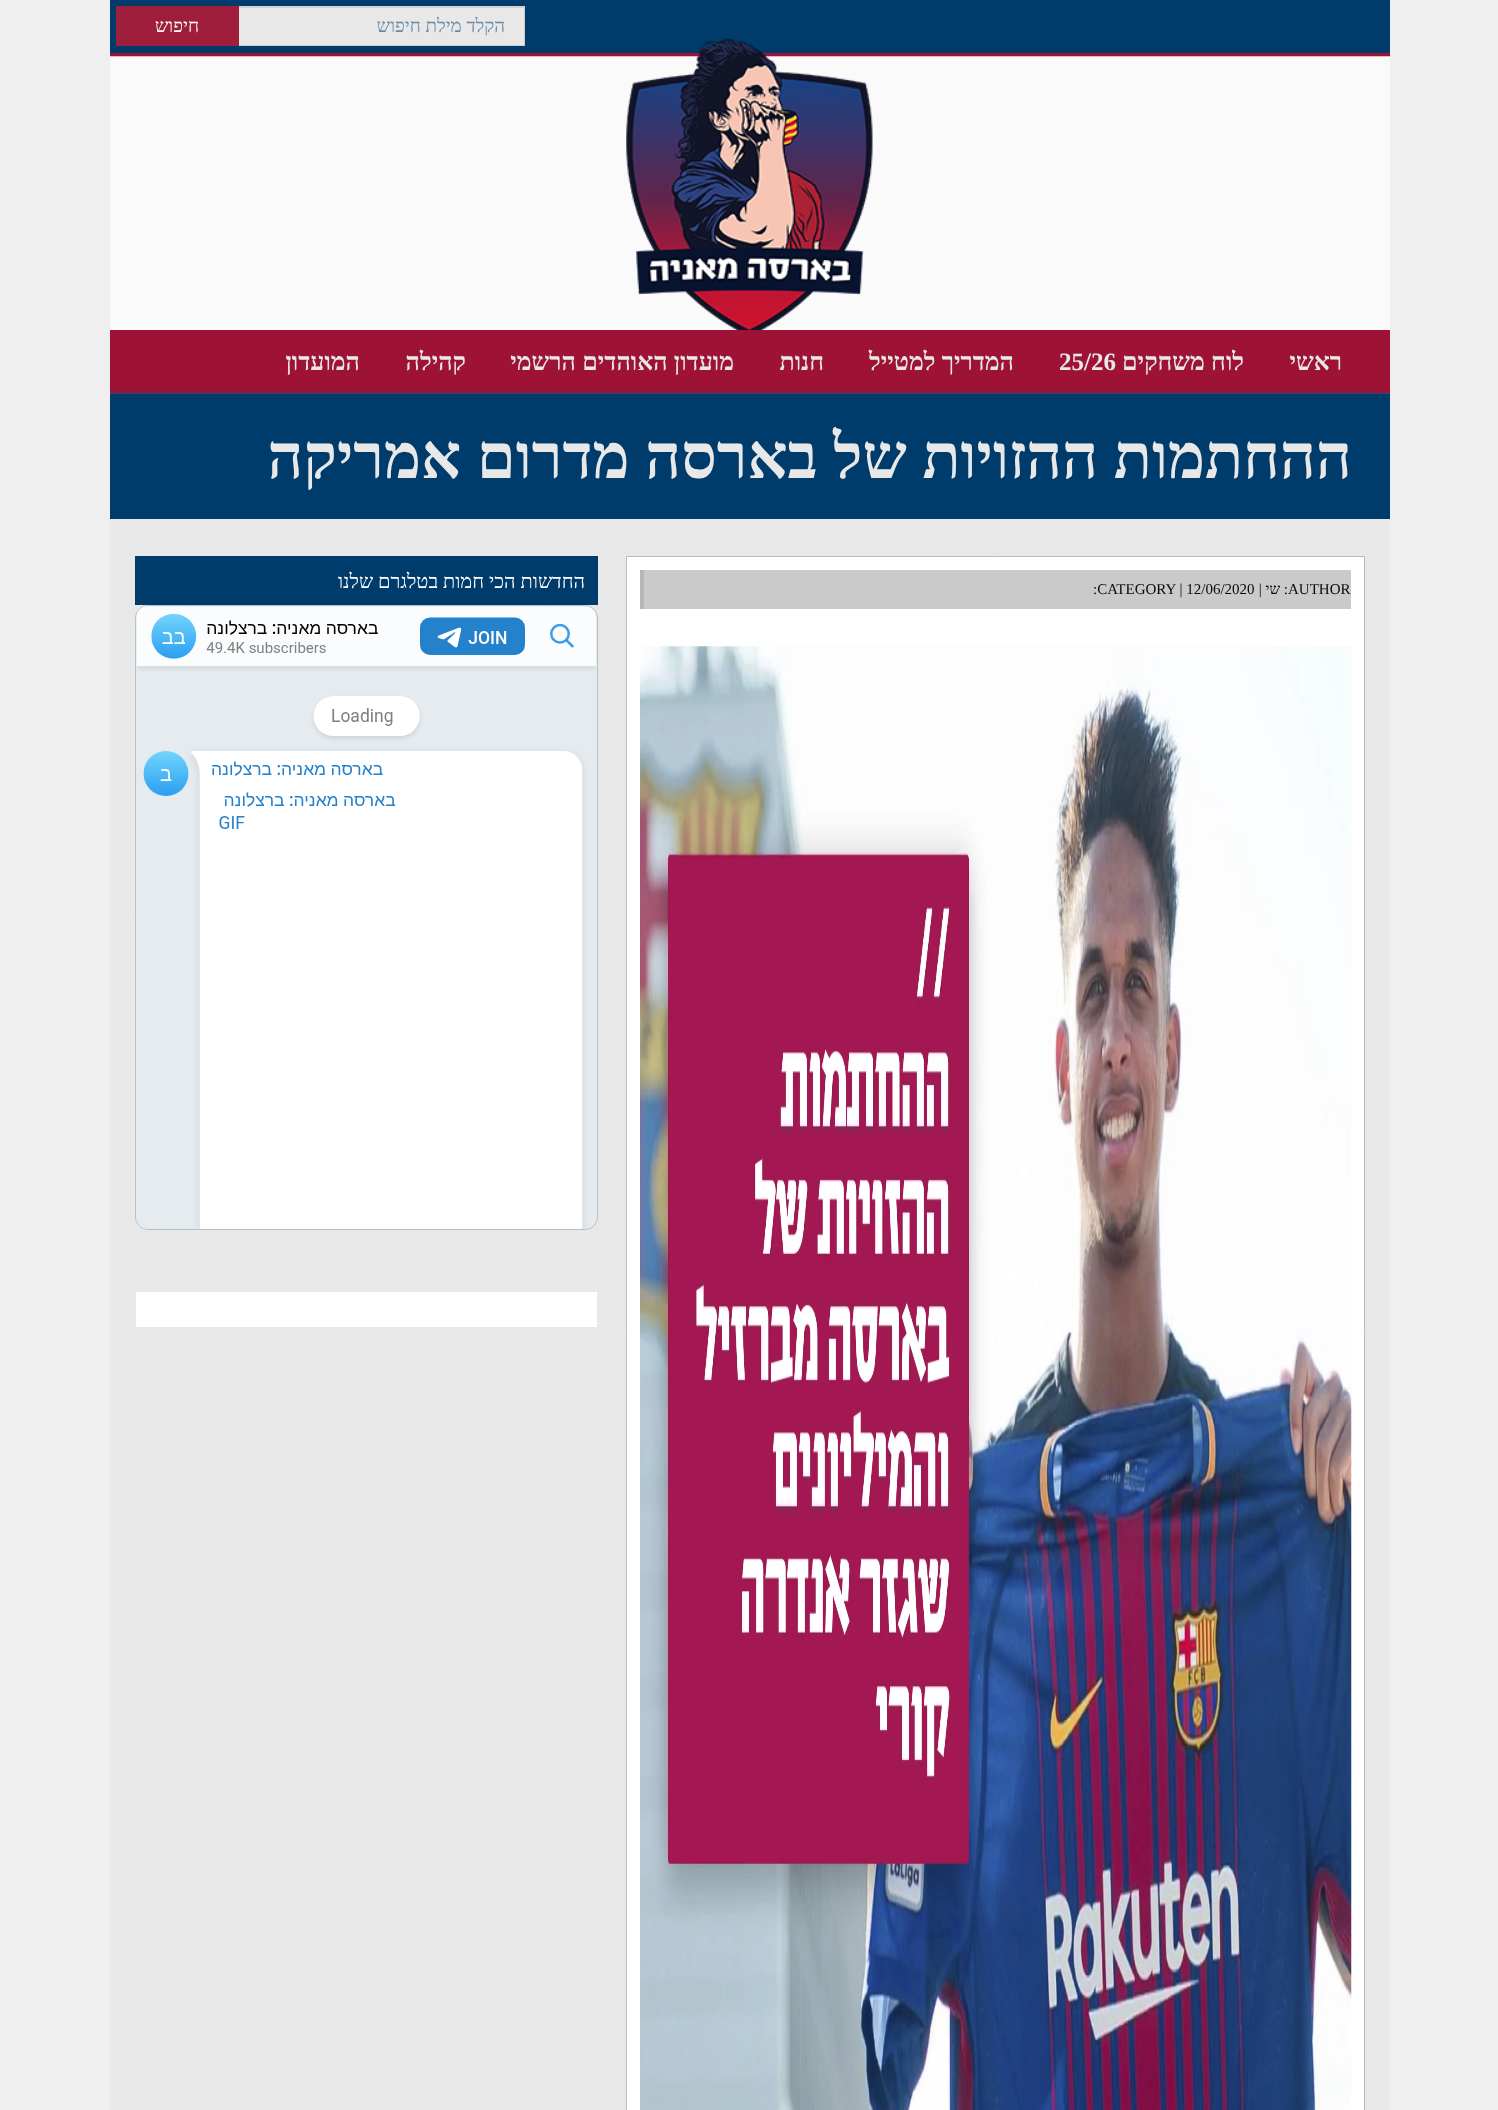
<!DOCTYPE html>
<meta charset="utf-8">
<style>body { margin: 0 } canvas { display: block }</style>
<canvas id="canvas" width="1498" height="2110"></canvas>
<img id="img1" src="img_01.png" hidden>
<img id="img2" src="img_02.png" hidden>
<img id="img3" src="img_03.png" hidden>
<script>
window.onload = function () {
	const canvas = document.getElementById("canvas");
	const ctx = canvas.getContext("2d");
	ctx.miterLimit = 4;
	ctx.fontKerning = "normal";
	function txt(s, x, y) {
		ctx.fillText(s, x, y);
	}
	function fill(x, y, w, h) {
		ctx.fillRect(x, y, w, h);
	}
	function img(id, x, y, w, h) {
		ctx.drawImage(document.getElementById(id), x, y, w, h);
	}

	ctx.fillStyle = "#EFEFEF";
	fill(0, 0, 1498, 2110);
	ctx.fillStyle = "#FAFAFA";
	fill(110, 57, 1280, 273);
	ctx.fillStyle = "#003C6B";
	fill(110, 0, 1280, 53);
	ctx.fillStyle = "#9E1335";
	fill(110, 53, 1280, 3);
	ctx.fillStyle = "#E2B8C2";
	fill(110, 56, 1280, 1);
	ctx.fillStyle = "#E8E8E8";
	fill(239, 6, 286, 40);
	ctx.fillStyle = "#D1D1D1";
	ctx.beginPath();
	ctx.moveTo(239, 6);
	ctx.lineTo(525, 6);
	ctx.lineTo(524, 8);
	ctx.lineTo(239, 8);
	ctx.closePath();
	ctx.fill();
	ctx.fillStyle = "#CACACA";
	ctx.beginPath();
	ctx.moveTo(525, 6);
	ctx.lineTo(525, 46);
	ctx.lineTo(524, 45);
	ctx.lineTo(524, 8);
	ctx.closePath();
	ctx.fill();
	ctx.fillStyle = "rgba(0, 0, 0, 0.1)";
	ctx.beginPath();
	ctx.moveTo(525, 46);
	ctx.lineTo(239, 46);
	ctx.lineTo(239, 45);
	ctx.lineTo(524, 45);
	ctx.closePath();
	ctx.fill();
	ctx.fillStyle = "#9E1E3C";
	fill(116, 6, 123, 40);
	img("img1", 626, 38, 247, 292);
	ctx.fillStyle = "#9E1335";
	fill(110, 330, 1280, 63);
	ctx.fillStyle = "#003C6B";
	fill(110, 394, 1280, 125);
	ctx.fillStyle = "#1A507A";
	fill(110, 393, 1280, 1);
	ctx.fillStyle = "#E8E8E8";
	fill(110, 519, 1280, 1591);
	ctx.fillStyle = "#003C6B";
	fill(135, 556, 463, 49);
	ctx.beginPath();
	ctx.roundRect(135.5, 605.5, 462, 624, 12.5);
	ctx.strokeStyle = "#B5C0C8";
	ctx.stroke();
	img("img2", 136, 606, 461, 623);
	ctx.fillStyle = "#FFFFFF";
	fill(136, 1292, 461, 35);
	ctx.beginPath();
	ctx.rect(626.5, 556.5, 738, 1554);
	ctx.fill();
	ctx.strokeStyle = "#BBBBBB";
	ctx.stroke();
	ctx.fillStyle = "#CACACA";
	fill(644, 570, 707, 39);
	ctx.fillStyle = "#B6B6B6";
	fill(640, 570, 4, 39);
	img("img3", 640, 646, 712, 1464);
	ctx.direction = "rtl";
	ctx.font = "18.75px Liberation Serif";
	ctx.fillStyle = "#6B8BA5";
	txt("הקלד מילת חיפוש", 505, 32);
	ctx.fillStyle = "#FFFFFF";
	txt("חיפוש", 199, 32);
	ctx.font = "bold 25px Liberation Serif";
	ctx.fillStyle = "#E8E8E8";
	txt("ראשי", 1342, 370);
	txt("לוח משחקים", 1244, 370);
	ctx.direction = "ltr";
	txt("25/26", 1059, 370);
	ctx.direction = "rtl";
	txt("המדריך למטייל", 1014, 370);
	txt("חנות", 824, 370);
	txt("מועדון האוהדים הרשמי", 734, 370);
	txt("קהילה", 466, 370);
	txt("המועדון", 360, 370);
	ctx.font = "bold 62.5px Liberation Serif";
	txt("ההחתמות ההזויות של בארסה מדרום אמריקה", 1352, 478);
	ctx.font = "20px Liberation Serif";
	ctx.fillStyle = "#FFFFFF";
	txt("החדשות הכי חמות בטלגרם שלנו", 585, 588);
	ctx.direction = "ltr";
	ctx.font = "15px Liberation Serif";
	ctx.fillStyle = "#0A0A0A";
	txt("AUTHOR", 1288, 594);
	ctx.direction = "rtl";
	txt(": שי |", 1288, 594);
	ctx.direction = "ltr";
	txt(":CATEGORY | 12/06/2020", 1093, 594);
};
</script>
